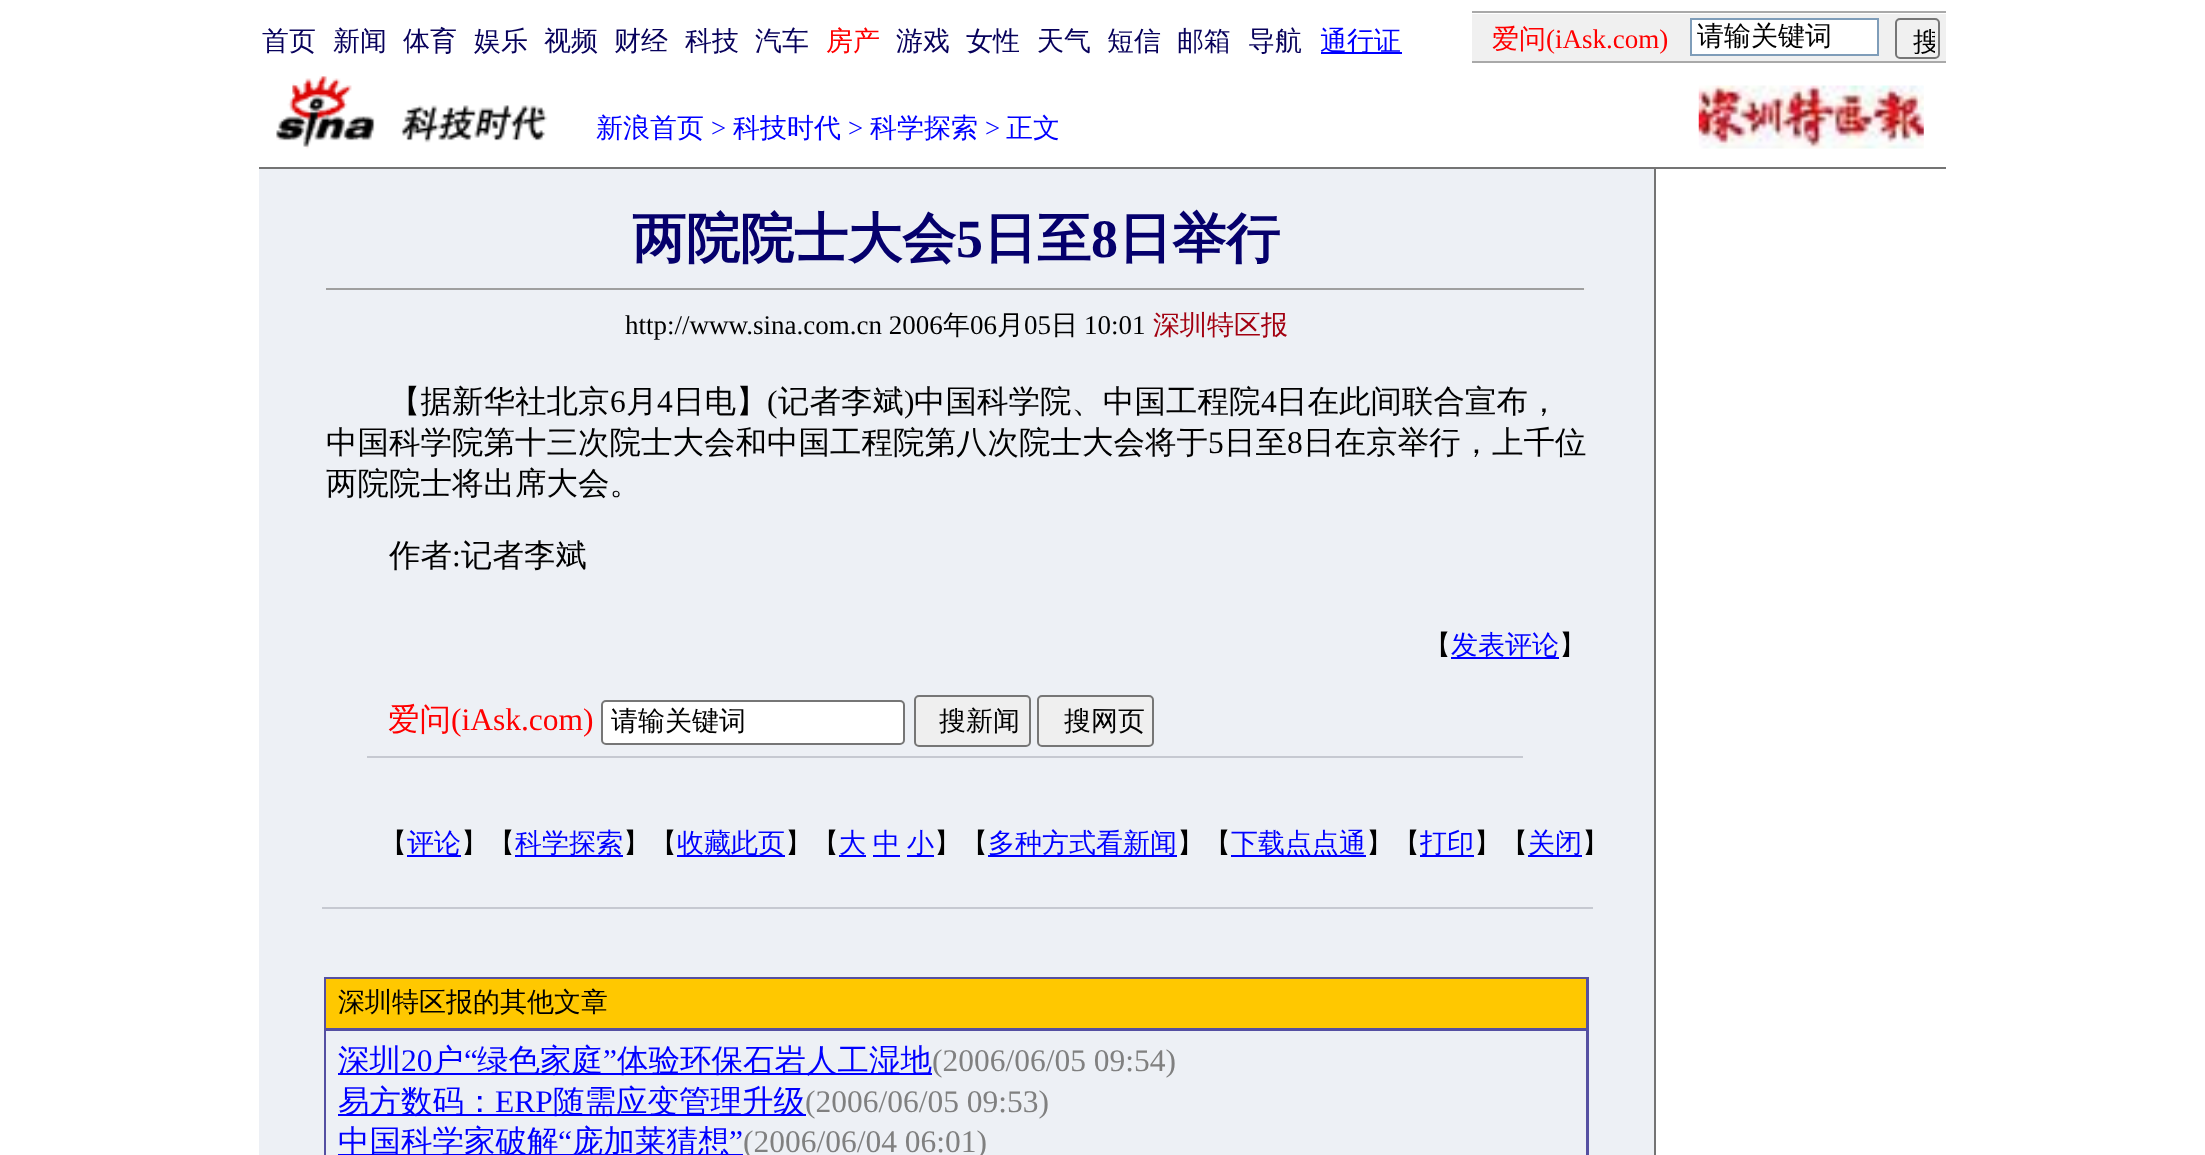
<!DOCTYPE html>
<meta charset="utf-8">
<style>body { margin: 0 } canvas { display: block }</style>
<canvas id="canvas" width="2205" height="1155"></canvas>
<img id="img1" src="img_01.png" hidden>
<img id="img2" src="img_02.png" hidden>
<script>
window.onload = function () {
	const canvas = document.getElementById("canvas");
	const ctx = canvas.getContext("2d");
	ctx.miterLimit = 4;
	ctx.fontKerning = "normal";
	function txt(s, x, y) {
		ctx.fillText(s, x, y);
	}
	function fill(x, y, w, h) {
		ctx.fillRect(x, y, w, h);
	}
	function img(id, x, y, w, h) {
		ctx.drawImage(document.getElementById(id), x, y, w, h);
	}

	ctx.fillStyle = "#FFFFFF";
	fill(0, 0, 2205, 1155);
	ctx.fillStyle = "#0000FF";
	fill(1321, 52, 81, 2);
	ctx.fillStyle = "#A9A9A9";
	fill(1472, 11, 474, 2);
	ctx.fillStyle = "#F0F0F0";
	fill(1472, 14, 474, 47);
	ctx.fillStyle = "#FFFFFF";
	ctx.beginPath();
	ctx.rect(1691, 19, 187, 36);
	ctx.fill();
	ctx.strokeStyle = "#7F9DB9";
	ctx.lineWidth = 2;
	ctx.stroke();
	ctx.beginPath();
	ctx.roundRect(1896, 19, 43, 39, 4);
	ctx.strokeStyle = "#767676";
	ctx.stroke();
	ctx.fillStyle = "#A9A9A9";
	fill(1472, 61, 474, 2);
	img("img1", 276, 76, 272, 73);
	img("img2", 1698, 85, 226, 64);
	ctx.fillStyle = "#747474";
	fill(259, 167, 1687, 2);
	ctx.fillStyle = "#EDF0F5";
	fill(259, 169, 1395, 986);
	ctx.fillStyle = "#9F9F9F";
	fill(326, 288, 1260, 2);
	ctx.fillStyle = "#EEEEEE";
	fill(1584, 288, 2, 2);
	ctx.fillStyle = "#0000FF";
	fill(1451, 657, 108, 2);
	ctx.fillStyle = "#C6C9D1";
	fill(367, 756, 1156, 2);
	ctx.fillStyle = "#FFFFFF";
	ctx.beginPath();
	ctx.roundRect(602, 701, 302, 43, 4);
	ctx.fill();
	ctx.stroke();
	ctx.fillStyle = "#EFEFEF";
	ctx.beginPath();
	ctx.roundRect(915, 696, 115, 50, 4);
	ctx.fill();
	ctx.stroke();
	ctx.beginPath();
	ctx.roundRect(1038, 696, 115, 50, 4);
	ctx.fill();
	ctx.stroke();
	ctx.fillStyle = "#0000FF";
	fill(407, 855, 54, 2);
	fill(515, 855, 108, 2);
	fill(677, 855, 108, 2);
	fill(839, 855, 27, 2);
	fill(873, 855, 27, 2);
	fill(907, 855, 27, 2);
	fill(988, 855, 189, 2);
	fill(1231, 855, 135, 2);
	fill(1420, 855, 54, 2);
	fill(1528, 855, 54, 2);
	ctx.fillStyle = "#C6C9D1";
	fill(322, 907, 1271, 2);
	ctx.fillStyle = "#5550A2";
	fill(324, 977, 1265, 178);
	ctx.fillStyle = "#FFC800";
	fill(326, 979, 1260, 49);
	ctx.fillStyle = "#EDF0F5";
	fill(326, 1031, 1260, 124);
	ctx.fillStyle = "#0000FF";
	fill(338, 1073, 594, 2);
	fill(338, 1114, 468, 2);
	fill(338, 1154, 405, 1);
	ctx.fillStyle = "#747474";
	fill(1654, 169, 2, 986);
	ctx.font = "500 27px WenQuanYi Zen Hei";
	ctx.fillStyle = "#07015B";
	txt("首页", 262, 50);
	txt("新闻", 333, 50);
	txt("体育", 403, 50);
	txt("娱乐", 474, 50);
	txt("视频", 544, 50);
	txt("财经", 614, 50);
	txt("科技", 685, 50);
	txt("汽车", 755, 50);
	ctx.fillStyle = "#FF0000";
	txt("房产", 826, 50);
	ctx.fillStyle = "#07015B";
	txt("游戏", 896, 50);
	txt("女性", 966, 50);
	txt("天气", 1037, 50);
	txt("短信", 1107, 50);
	txt("邮箱", 1177, 50);
	txt("导航", 1248, 50);
	ctx.fillStyle = "#0000FF";
	txt("通行证", 1320, 50);
	ctx.fillStyle = "#FF0000";
	txt("爱问", 1492, 48);
	ctx.font = "27px Liberation Serif";
	txt("(iAsk.com)", 1546, 48);
	ctx.font = "500 27px WenQuanYi Zen Hei";
	ctx.fillStyle = "#000000";
	txt("请输关键词", 1697, 45);
	ctx.save();
	ctx.beginPath();
	ctx.rect(1899, 23, 36, 31);
	ctx.clip();
	txt("搜", 1913, 51);
	ctx.restore();
	ctx.fillStyle = "#0000FF";
	txt("新浪首页", 596, 137);
	ctx.font = "27px Liberation Serif";
	txt(">", 711, 137);
	ctx.font = "500 27px WenQuanYi Zen Hei";
	txt("科技时代", 733, 137);
	ctx.font = "27px Liberation Serif";
	txt(">", 848, 137);
	ctx.font = "500 27px WenQuanYi Zen Hei";
	txt("科学探索", 870, 137);
	ctx.font = "27px Liberation Serif";
	txt(">", 985, 137);
	ctx.font = "500 27px WenQuanYi Zen Hei";
	txt("正文", 1006, 137);
	ctx.font = "bold 54px WenQuanYi Zen Hei";
	ctx.fillStyle = "#05006C";
	txt("两院院士大会", 632, 257);
	ctx.font = "bold 54px Liberation Serif";
	txt("5", 956, 257);
	ctx.font = "bold 54px WenQuanYi Zen Hei";
	txt("日至", 983, 257);
	ctx.font = "bold 54px Liberation Serif";
	txt("8", 1091, 257);
	ctx.font = "bold 54px WenQuanYi Zen Hei";
	txt("日举行", 1118, 257);
	ctx.font = "27px Liberation Serif";
	ctx.fillStyle = "#000000";
	txt("http://www.sina.com.cn 2006", 625, 334);
	ctx.font = "500 27px WenQuanYi Zen Hei";
	txt("年", 943, 334);
	ctx.font = "27px Liberation Serif";
	txt("06", 970, 334);
	ctx.font = "500 27px WenQuanYi Zen Hei";
	txt("月", 997, 334);
	ctx.font = "27px Liberation Serif";
	txt("05", 1024, 334);
	ctx.font = "500 27px WenQuanYi Zen Hei";
	txt("日", 1051, 334);
	ctx.font = "27px Liberation Serif";
	txt("10:01", 1084, 334);
	ctx.font = "500 27px WenQuanYi Zen Hei";
	ctx.fillStyle = "#A20010";
	txt("深圳特区报", 1153, 334);
	ctx.font = "500 31.5px WenQuanYi Zen Hei";
	ctx.fillStyle = "#000000";
	txt("【据新华社北京", 389, 412);
	ctx.font = "31.5px Liberation Serif";
	txt("6", 610, 412);
	ctx.font = "500 31.5px WenQuanYi Zen Hei";
	txt("月", 626, 412);
	ctx.font = "31.5px Liberation Serif";
	txt("4", 657, 412);
	ctx.font = "500 31.5px WenQuanYi Zen Hei";
	txt("日电】", 673, 412);
	ctx.font = "31.5px Liberation Serif";
	txt("(", 767, 412);
	ctx.font = "500 31.5px WenQuanYi Zen Hei";
	txt("记者李斌", 778, 412);
	ctx.font = "31.5px Liberation Serif";
	txt(")", 904, 412);
	ctx.font = "500 31.5px WenQuanYi Zen Hei";
	txt("中国科学院、中国工程院", 914, 412);
	ctx.font = "31.5px Liberation Serif";
	txt("4", 1261, 412);
	ctx.font = "500 31.5px WenQuanYi Zen Hei";
	txt("日在此间联合宣布，", 1276, 412);
	txt("中国科学院第十三次院士大会和中国工程院第八次院士大会将于", 326, 453);
	ctx.font = "31.5px Liberation Serif";
	txt("5", 1208, 453);
	ctx.font = "500 31.5px WenQuanYi Zen Hei";
	txt("日至", 1224, 453);
	ctx.font = "31.5px Liberation Serif";
	txt("8", 1287, 453);
	ctx.font = "500 31.5px WenQuanYi Zen Hei";
	txt("日在京举行，上千位", 1303, 453);
	txt("两院院士将出席大会。", 326, 494);
	txt("作者", 389, 566);
	ctx.font = "31.5px Liberation Serif";
	txt(":", 452, 566);
	ctx.font = "500 31.5px WenQuanYi Zen Hei";
	txt("记者李斌", 461, 566);
	ctx.font = "500 27px WenQuanYi Zen Hei";
	txt("【", 1424, 654);
	ctx.fillStyle = "#0000FF";
	txt("发表评论", 1451, 654);
	ctx.fillStyle = "#000000";
	txt("】", 1559, 654);
	ctx.font = "500 31.5px WenQuanYi Zen Hei";
	ctx.fillStyle = "#FF0000";
	txt("爱问", 388, 730);
	ctx.font = "31.5px Liberation Serif";
	txt("(iAsk.com)", 451, 730);
	ctx.font = "500 27px WenQuanYi Zen Hei";
	ctx.fillStyle = "#000000";
	txt("请输关键词", 611, 730);
	txt("搜新闻", 939, 730);
	txt("搜网页", 1064, 730);
	txt("【", 380, 852);
	ctx.fillStyle = "#0000FF";
	txt("评论", 407, 852);
	ctx.fillStyle = "#000000";
	txt("】【", 461, 852);
	ctx.fillStyle = "#0000FF";
	txt("科学探索", 515, 852);
	ctx.fillStyle = "#000000";
	txt("】【", 623, 852);
	ctx.fillStyle = "#0000FF";
	txt("收藏此页", 677, 852);
	ctx.fillStyle = "#000000";
	txt("】【", 785, 852);
	ctx.fillStyle = "#0000FF";
	txt("大", 839, 852);
	txt("中", 873, 852);
	txt("小", 907, 852);
	ctx.fillStyle = "#000000";
	txt("】【", 934, 852);
	ctx.fillStyle = "#0000FF";
	txt("多种方式看新闻", 988, 852);
	ctx.fillStyle = "#000000";
	txt("】【", 1177, 852);
	ctx.fillStyle = "#0000FF";
	txt("下载点点通", 1231, 852);
	ctx.fillStyle = "#000000";
	txt("】【", 1366, 852);
	ctx.fillStyle = "#0000FF";
	txt("打印", 1420, 852);
	ctx.fillStyle = "#000000";
	txt("】【", 1474, 852);
	ctx.fillStyle = "#0000FF";
	txt("关闭", 1528, 852);
	ctx.fillStyle = "#000000";
	txt("】", 1582, 852);
	txt("深圳特区报的其他文章", 338, 1011);
	ctx.font = "500 31.5px WenQuanYi Zen Hei";
	ctx.fillStyle = "#0000FF";
	txt("深圳", 338, 1071);
	ctx.font = "31.5px Liberation Serif";
	txt("20", 401, 1071);
	ctx.font = "500 31.5px WenQuanYi Zen Hei";
	txt("户", 432, 1071);
	ctx.font = "31.5px Liberation Serif";
	txt("“", 464, 1071);
	ctx.font = "500 31.5px WenQuanYi Zen Hei";
	txt("绿色家庭", 477, 1071);
	ctx.font = "31.5px Liberation Serif";
	txt("”", 603, 1071);
	ctx.font = "500 31.5px WenQuanYi Zen Hei";
	txt("体验环保石岩人工湿地", 617, 1071);
	ctx.font = "31.5px Liberation Serif";
	ctx.fillStyle = "#808080";
	txt("(2006/06/05 09:54)", 932, 1071);
	ctx.font = "500 31.5px WenQuanYi Zen Hei";
	ctx.fillStyle = "#0000FF";
	txt("易方数码：", 338, 1112);
	ctx.font = "31.5px Liberation Serif";
	txt("ERP", 495, 1112);
	ctx.font = "500 31.5px WenQuanYi Zen Hei";
	txt("随需应变管理升级", 553, 1112);
	ctx.font = "31.5px Liberation Serif";
	ctx.fillStyle = "#808080";
	txt("(2006/06/05 09:53)", 805, 1112);
	ctx.font = "500 31.5px WenQuanYi Zen Hei";
	ctx.fillStyle = "#0000FF";
	txt("中国科学家破解", 338, 1152);
	ctx.font = "31.5px Liberation Serif";
	txt("“", 558, 1152);
	ctx.font = "500 31.5px WenQuanYi Zen Hei";
	txt("庞加莱猜想", 572, 1152);
	ctx.font = "31.5px Liberation Serif";
	txt("”", 729, 1152);
	ctx.fillStyle = "#808080";
	txt("(2006/06/04 06:01)", 743, 1152);
};
</script>
